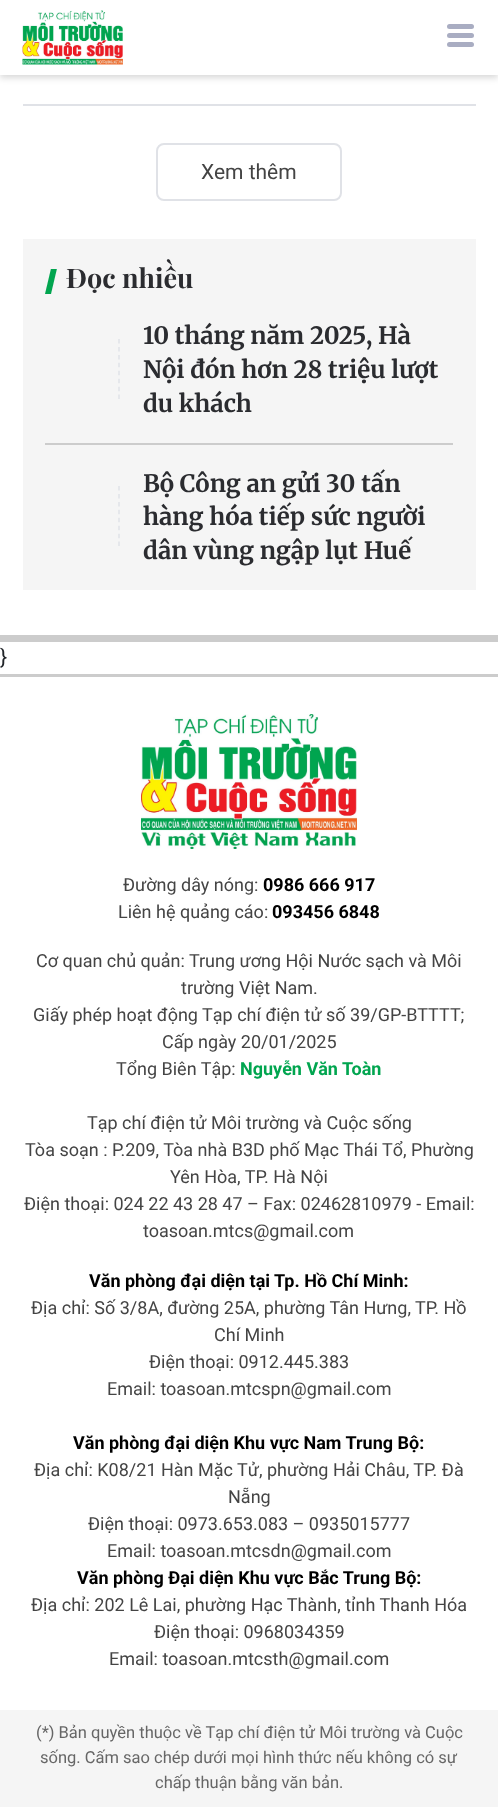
<!DOCTYPE html>
<meta charset="utf-8">
<style>body { margin: 0 } canvas { display: block }</style>
<canvas id="canvas" width="498" height="1807"></canvas>
<img id="img1" src="img_01.png" hidden>
<img id="img2" src="img_02.png" hidden>
<script>
window.onload = function () {
	const canvas = document.getElementById("canvas");
	const ctx = canvas.getContext("2d");
	ctx.miterLimit = 4;
	ctx.fontKerning = "normal";
	function txt(s, x, y) {
		ctx.fillText(s, x, y);
	}
	function fill(x, y, w, h) {
		ctx.fillRect(x, y, w, h);
	}
	function round(x, y, w, h, r) {
		ctx.beginPath();
		ctx.roundRect(x, y, w, h, r);
		ctx.fill();
	}
	function img(id, x, y, w, h) {
		ctx.drawImage(document.getElementById(id), x, y, w, h);
	}

	ctx.fillStyle = "#FFFFFF";
	fill(0, 0, 498, 1807);
	ctx.fillStyle = "rgba(0, 0, 0, 0.15)";
	ctx.filter = "blur(3px)";
	ctx.beginPath();
	ctx.rect(0, 3, 498, 75);
	ctx.fill();
	ctx.filter = "none";
	ctx.fillStyle = "#FFFFFF";
	fill(0, 0, 498, 75);
	img("img1", 22, 10, 101, 55);
	ctx.fillStyle = "#A9ADC2";
	round(447, 33, 27, 5, 2.5);
	round(447, 24, 27, 5, 2.5);
	round(447, 42, 27, 5, 2.5);
	ctx.fillStyle = "#CCCCCC";
	fill(0, 635, 498, 7);
	ctx.fillStyle = "#E0E2E7";
	fill(23, 104, 453, 2);
	ctx.beginPath();
	ctx.roundRect(157, 144, 184, 56, 7);
	ctx.strokeStyle = "#E0E2E7";
	ctx.lineWidth = 2;
	ctx.stroke();
	ctx.fillStyle = "#F5F5F5";
	fill(23, 239, 453, 351);
	ctx.save();
	ctx.beginPath();
	ctx.rect(45, 269, 12, 25);
	ctx.clip();
	ctx.fillStyle = "#01A54F";
	ctx.beginPath();
	ctx.moveTo(51, 268.5);
	ctx.lineTo(57, 268.5);
	ctx.lineTo(51, 294);
	ctx.lineTo(45, 294);
	ctx.closePath();
	ctx.fill();
	ctx.restore();
	ctx.fillStyle = "#CCCCCC";
	fill(45, 443, 408, 2);
	ctx.beginPath();
	ctx.moveTo(119, 339);
	ctx.lineTo(119, 399);
	ctx.lineWidth = 1.5;
	ctx.setLineDash([4.5, 3.44]);
	ctx.stroke();
	ctx.beginPath();
	ctx.moveTo(119, 486);
	ctx.lineTo(119, 546);
	ctx.stroke();
	fill(0, 674, 498, 3);
	img("img2", 141, 714, 216, 135);
	ctx.fillStyle = "#F5F5F5";
	fill(0, 1710, 498, 97);
	ctx.font = "21px Roboto";
	ctx.fillStyle = "#444444";
	txt("Xem thêm", 201, 179);
	ctx.font = "bold 27px Playfair Display";
	ctx.fillStyle = "#2B2C30";
	txt("Đọc nhiều", 66, 288);
	ctx.font = "bold 24px Merriweather";
	txt("10 tháng năm 2025, Hà", 143, 344);
	txt("Nội đón hơn 28 triệu lượt", 143, 378);
	txt("du khách", 143, 412);
	txt("Bộ Công an gửi 30 tấn", 143, 492);
	txt("hàng hóa tiếp sức người", 143, 525);
	txt("dân vùng ngập lụt Huế", 143, 559);
	ctx.font = "21px Roboto";
	ctx.fillStyle = "#212529";
	txt("}", 0, 664);
	ctx.font = "18px Roboto";
	ctx.fillStyle = "#444444";
	txt("Đường dây nóng:", 123, 891);
	ctx.font = "bold 18px Roboto";
	ctx.fillStyle = "#000000";
	txt("0986 666 917", 263, 891);
	ctx.font = "18px Roboto";
	ctx.fillStyle = "#444444";
	txt("Liên hệ quảng cáo:", 118, 918);
	ctx.font = "bold 18px Roboto";
	ctx.fillStyle = "#000000";
	txt("093456 6848", 272, 918);
	ctx.font = "18px Roboto";
	ctx.fillStyle = "#444444";
	txt("Cơ quan chủ quản: Trung ương Hội Nước sạch và Môi", 36, 967);
	txt("trường Việt Nam.", 181, 994);
	txt("Giấy phép hoạt động Tạp chí điện tử số 39/GP-BTTTT;", 33, 1021);
	txt("Cấp ngày 20/01/2025", 162, 1048);
	txt("Tổng Biên Tập:", 116, 1075);
	ctx.font = "bold 18px Roboto";
	ctx.fillStyle = "#01A54F";
	txt("Nguyễn Văn Toàn", 240, 1075);
	ctx.font = "18px Roboto";
	ctx.fillStyle = "#444444";
	txt("Tạp chí điện tử Môi trường và Cuộc sống", 87, 1129);
	txt("Tòa soạn : P.209, Tòa nhà B3D phố Mạc Thái Tổ, Phường", 25, 1156);
	txt("Yên Hòa, TP. Hà Nội", 170, 1183);
	txt("Điện thoại: 024 22 43 28 47 – Fax: 02462810979 - Email:", 24, 1210);
	txt("toasoan.mtcs@gmail.com", 143, 1237);
	ctx.font = "bold 18px Roboto";
	ctx.fillStyle = "#000000";
	txt("Văn phòng đại diện tại Tp. Hồ Chí Minh:", 89, 1287);
	ctx.font = "18px Roboto";
	ctx.fillStyle = "#444444";
	txt("Địa chỉ: Số 3/8A, đường 25A, phường Tân Hưng, TP. Hồ", 31, 1314);
	txt("Chí Minh", 214, 1341);
	txt("Điện thoại: 0912.445.383", 149, 1368);
	txt("Email: toasoan.mtcspn@gmail.com", 107, 1395);
	ctx.font = "bold 18px Roboto";
	ctx.fillStyle = "#000000";
	txt("Văn phòng đại diện Khu vực Nam Trung Bộ:", 73, 1449);
	ctx.font = "18px Roboto";
	ctx.fillStyle = "#444444";
	txt("Địa chỉ: K08/21 Hàn Mặc Tử, phường Hải Châu, TP. Đà", 34, 1476);
	txt("Nẵng", 228, 1503);
	txt("Điện thoại: 0973.653.083 – 0935015777", 88, 1530);
	txt("Email: toasoan.mtcsdn@gmail.com", 107, 1557);
	ctx.font = "bold 18px Roboto";
	ctx.fillStyle = "#000000";
	txt("Văn phòng Đại diện Khu vực Bắc Trung Bộ:", 77, 1584);
	ctx.font = "18px Roboto";
	ctx.fillStyle = "#444444";
	txt("Địa chỉ: 202 Lê Lai, phường Hạc Thành, tỉnh Thanh Hóa", 31, 1611);
	txt("Điện thoại: 0968034359", 154, 1638);
	txt("Email: toasoan.mtcsth@gmail.com", 109, 1665);
	ctx.font = "16.5px Roboto";
	ctx.fillStyle = "#666666";
	txt("(*) Bản quyền thuộc về Tạp chí điện tử Môi trường và Cuộc", 36, 1738);
	txt("sống. Cấm sao chép dưới mọi hình thức nếu không có sự", 40, 1763);
	txt("chấp thuận bằng văn bản.", 155, 1788);
};
</script>
